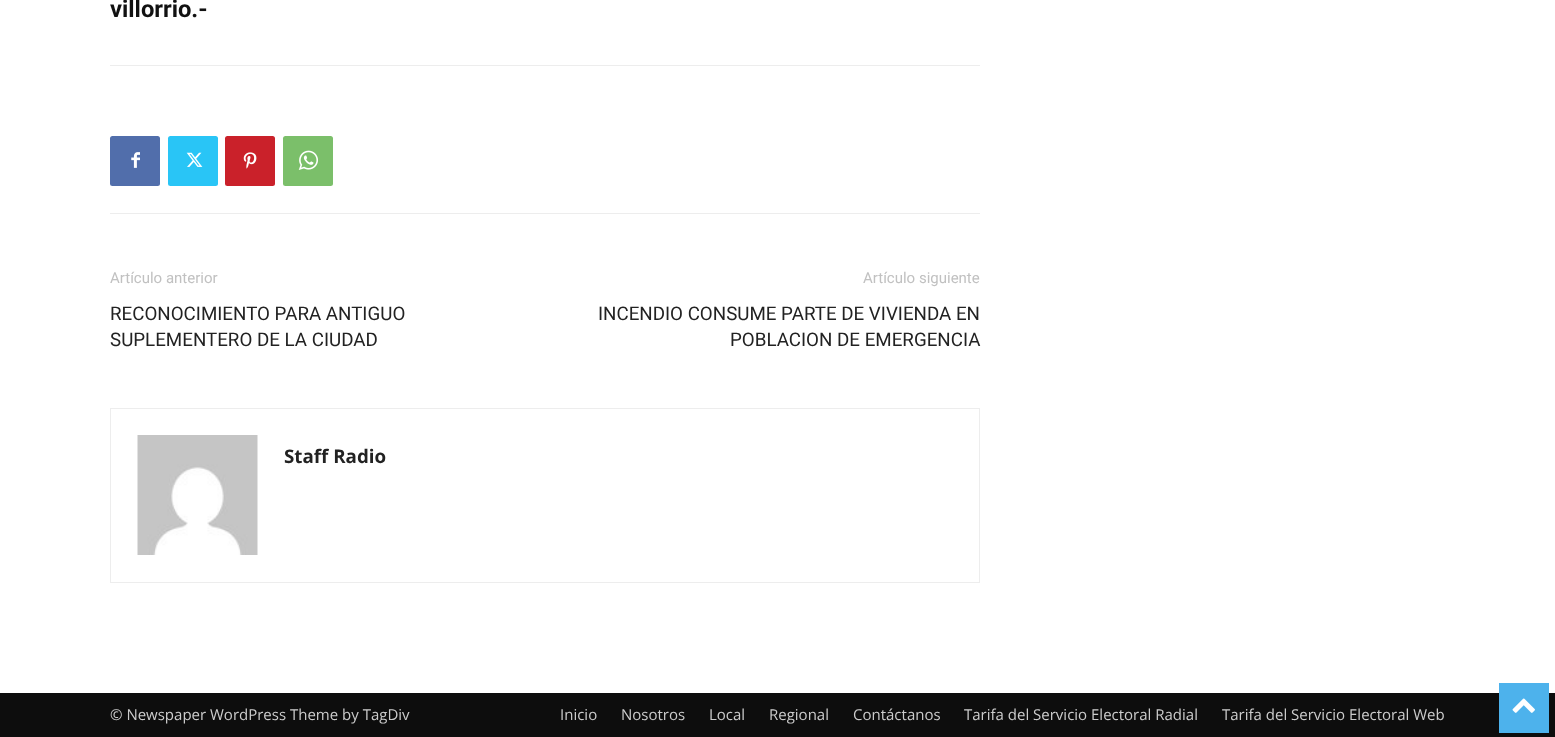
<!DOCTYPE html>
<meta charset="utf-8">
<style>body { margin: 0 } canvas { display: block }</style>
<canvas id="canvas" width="1555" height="737"></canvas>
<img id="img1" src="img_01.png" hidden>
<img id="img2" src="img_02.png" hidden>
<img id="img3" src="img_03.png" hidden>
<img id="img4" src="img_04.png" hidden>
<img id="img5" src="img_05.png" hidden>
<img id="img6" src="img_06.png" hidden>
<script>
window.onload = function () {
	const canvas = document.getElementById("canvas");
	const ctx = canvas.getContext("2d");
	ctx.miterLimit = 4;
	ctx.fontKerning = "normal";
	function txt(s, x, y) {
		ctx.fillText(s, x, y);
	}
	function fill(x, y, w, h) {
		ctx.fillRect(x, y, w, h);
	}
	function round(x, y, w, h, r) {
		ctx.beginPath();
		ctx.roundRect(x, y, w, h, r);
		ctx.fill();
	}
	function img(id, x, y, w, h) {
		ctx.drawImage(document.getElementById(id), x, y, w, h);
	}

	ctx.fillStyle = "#FFFFFF";
	fill(0, 0, 1555, 737);
	ctx.fillStyle = "#EDEDED";
	fill(110, 65, 870, 1);
	fill(110, 213, 870, 1);
	ctx.fillStyle = "#516EAB";
	round(110, 136, 50, 50, 2.5);
	img("img1", 131, 152, 9, 16);
	ctx.fillStyle = "#29C5F6";
	round(168, 136, 50, 50, 2.5);
	img("img2", 186, 152, 17, 15);
	ctx.fillStyle = "#CA212A";
	round(225, 136, 50, 50, 2.5);
	img("img3", 243, 152, 14, 17);
	ctx.fillStyle = "#7BBF6A";
	round(283, 136, 50, 50, 2.5);
	img("img4", 298, 150, 20, 20);
	ctx.strokeStyle = "#EDEDED";
	ctx.strokeRect(110.5, 408.5, 869, 174);
	img("img5", 137, 435, 121, 120);
	ctx.fillStyle = "#0D0D0D";
	fill(0, 693, 1555, 44);
	ctx.fillStyle = "#4DB2EC";
	fill(1499, 683, 50, 50);
	img("img6", 1512, 698, 23, 15);
	ctx.font = "bold 23.75px Roboto";
	ctx.fillStyle = "#111111";
	txt("villorrio.-", 110, 17);
	ctx.font = "15px Roboto";
	ctx.fillStyle = "#C1C1C1";
	txt("Artículo anterior", 110, 283);
	ctx.font = "18.75px Roboto";
	ctx.fillStyle = "#222222";
	txt("RECONOCIMIENTO PARA ANTIGUO", 110, 320);
	txt("SUPLEMENTERO DE LA CIUDAD", 110, 346);
	ctx.font = "15px Roboto";
	ctx.fillStyle = "#C1C1C1";
	txt("Artículo siguiente", 863, 283);
	ctx.font = "18.75px Roboto";
	ctx.fillStyle = "#222222";
	txt("INCENDIO CONSUME PARTE DE VIVIENDA EN", 598, 320);
	txt("POBLACION DE EMERGENCIA", 730, 346);
	ctx.font = "bold 18.75px Open Sans";
	txt("Staff Radio", 284, 463);
	ctx.font = "15px Open Sans";
	ctx.fillStyle = "#CCCCCC";
	txt("© Newspaper WordPress Theme by TagDiv", 110, 720);
	txt("Inicio", 560, 720);
	txt("Nosotros", 621, 720);
	txt("Local", 709, 720);
	txt("Regional", 769, 720);
	txt("Contáctanos", 853, 720);
	txt("Tarifa del Servicio Electoral Radial", 964, 720);
	txt("Tarifa del Servicio Electoral Web", 1222, 720);
};
</script>
